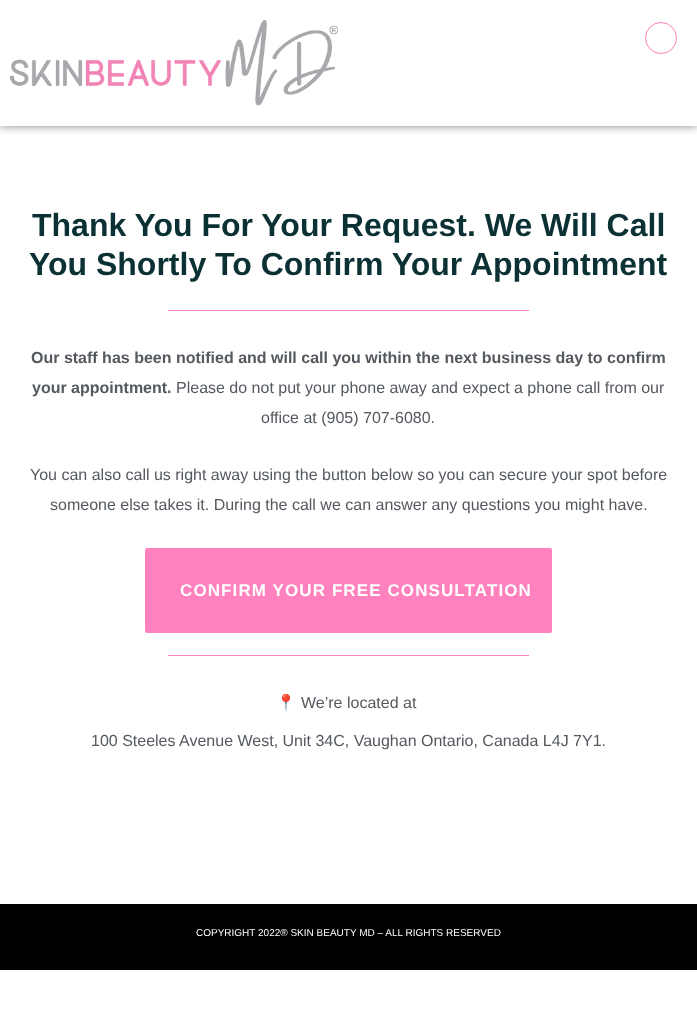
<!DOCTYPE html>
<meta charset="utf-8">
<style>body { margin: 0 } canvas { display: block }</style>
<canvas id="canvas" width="697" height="1020"></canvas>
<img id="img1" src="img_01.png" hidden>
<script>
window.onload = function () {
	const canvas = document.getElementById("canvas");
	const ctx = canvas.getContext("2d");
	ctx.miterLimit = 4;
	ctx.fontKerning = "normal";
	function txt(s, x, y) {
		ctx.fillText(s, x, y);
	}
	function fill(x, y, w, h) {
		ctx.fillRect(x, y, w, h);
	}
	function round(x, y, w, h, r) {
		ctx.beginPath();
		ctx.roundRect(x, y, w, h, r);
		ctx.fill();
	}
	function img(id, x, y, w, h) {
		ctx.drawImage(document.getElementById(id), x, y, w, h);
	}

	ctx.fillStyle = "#FFFFFF";
	fill(0, 0, 697, 1020);
	ctx.save();
	ctx.beginPath();
	ctx.rect(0, 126, 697, 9);
	ctx.clip();
	ctx.fillStyle = "rgba(0, 0, 0, 0.5)";
	ctx.filter = "blur(5px)";
	ctx.beginPath();
	ctx.rect(0, 0, 697, 126);
	ctx.fill();
	ctx.filter = "none";
	ctx.restore();
	img("img1", 10, 20, 328, 86);
	ctx.beginPath();
	ctx.arc(661, 38, 15.5, 0, Math.PI * 2);
	ctx.strokeStyle = "#FF82BE";
	ctx.stroke();
	ctx.fillStyle = "#FF82BE";
	fill(168, 310, 361, 1);
	round(145, 548, 407, 85, 2);
	fill(168, 655, 361, 1);
	ctx.fillStyle = "#000000";
	fill(0, 904, 697, 66);
	ctx.font = "bold 32px Liberation Sans";
	ctx.fillStyle = "#0B3134";
	txt("Thank You For Your Request. We Will Call", 32, 236);
	txt("You Shortly To Confirm Your Appointment", 29, 275);
	ctx.font = "bold 16px Liberation Sans";
	ctx.fillStyle = "#54595F";
	txt("Our staff has been notified and will call you within the next business day to confirm", 31, 363);
	txt("your appointment.", 32, 393);
	ctx.font = "16px Liberation Sans";
	txt("Please do not put your phone away and expect a phone call from our", 176, 393);
	txt("office at (905) 707-6080.", 261, 423);
	txt("You can also call us right away using the button below so you can secure your spot before", 30, 480);
	txt("someone else takes it. During the call we can answer any questions you might have.", 50, 510);
	ctx.letterSpacing = "1.1px";
	ctx.font = "bold 17px Liberation Sans";
	ctx.fillStyle = "#FFFFFF";
	txt("CONFIRM YOUR FREE CONSULTATION", 180, 596);
	ctx.letterSpacing = "0px";
	ctx.font = "16px Noto Color Emoji";
	ctx.fillStyle = "#54595F";
	txt("📍", 276, 708);
	ctx.font = "16px Liberation Sans";
	txt("We’re located at", 301, 708);
	txt("100 Steeles Avenue West, Unit 34C, Vaughan Ontario, Canada L4J 7Y1.", 91, 746);
	ctx.font = "10px Liberation Sans";
	ctx.fillStyle = "#FFFFFF";
	txt("COPYRIGHT 2022® SKIN BEAUTY MD – ALL RIGHTS RESERVED", 196, 936);
};
</script>
